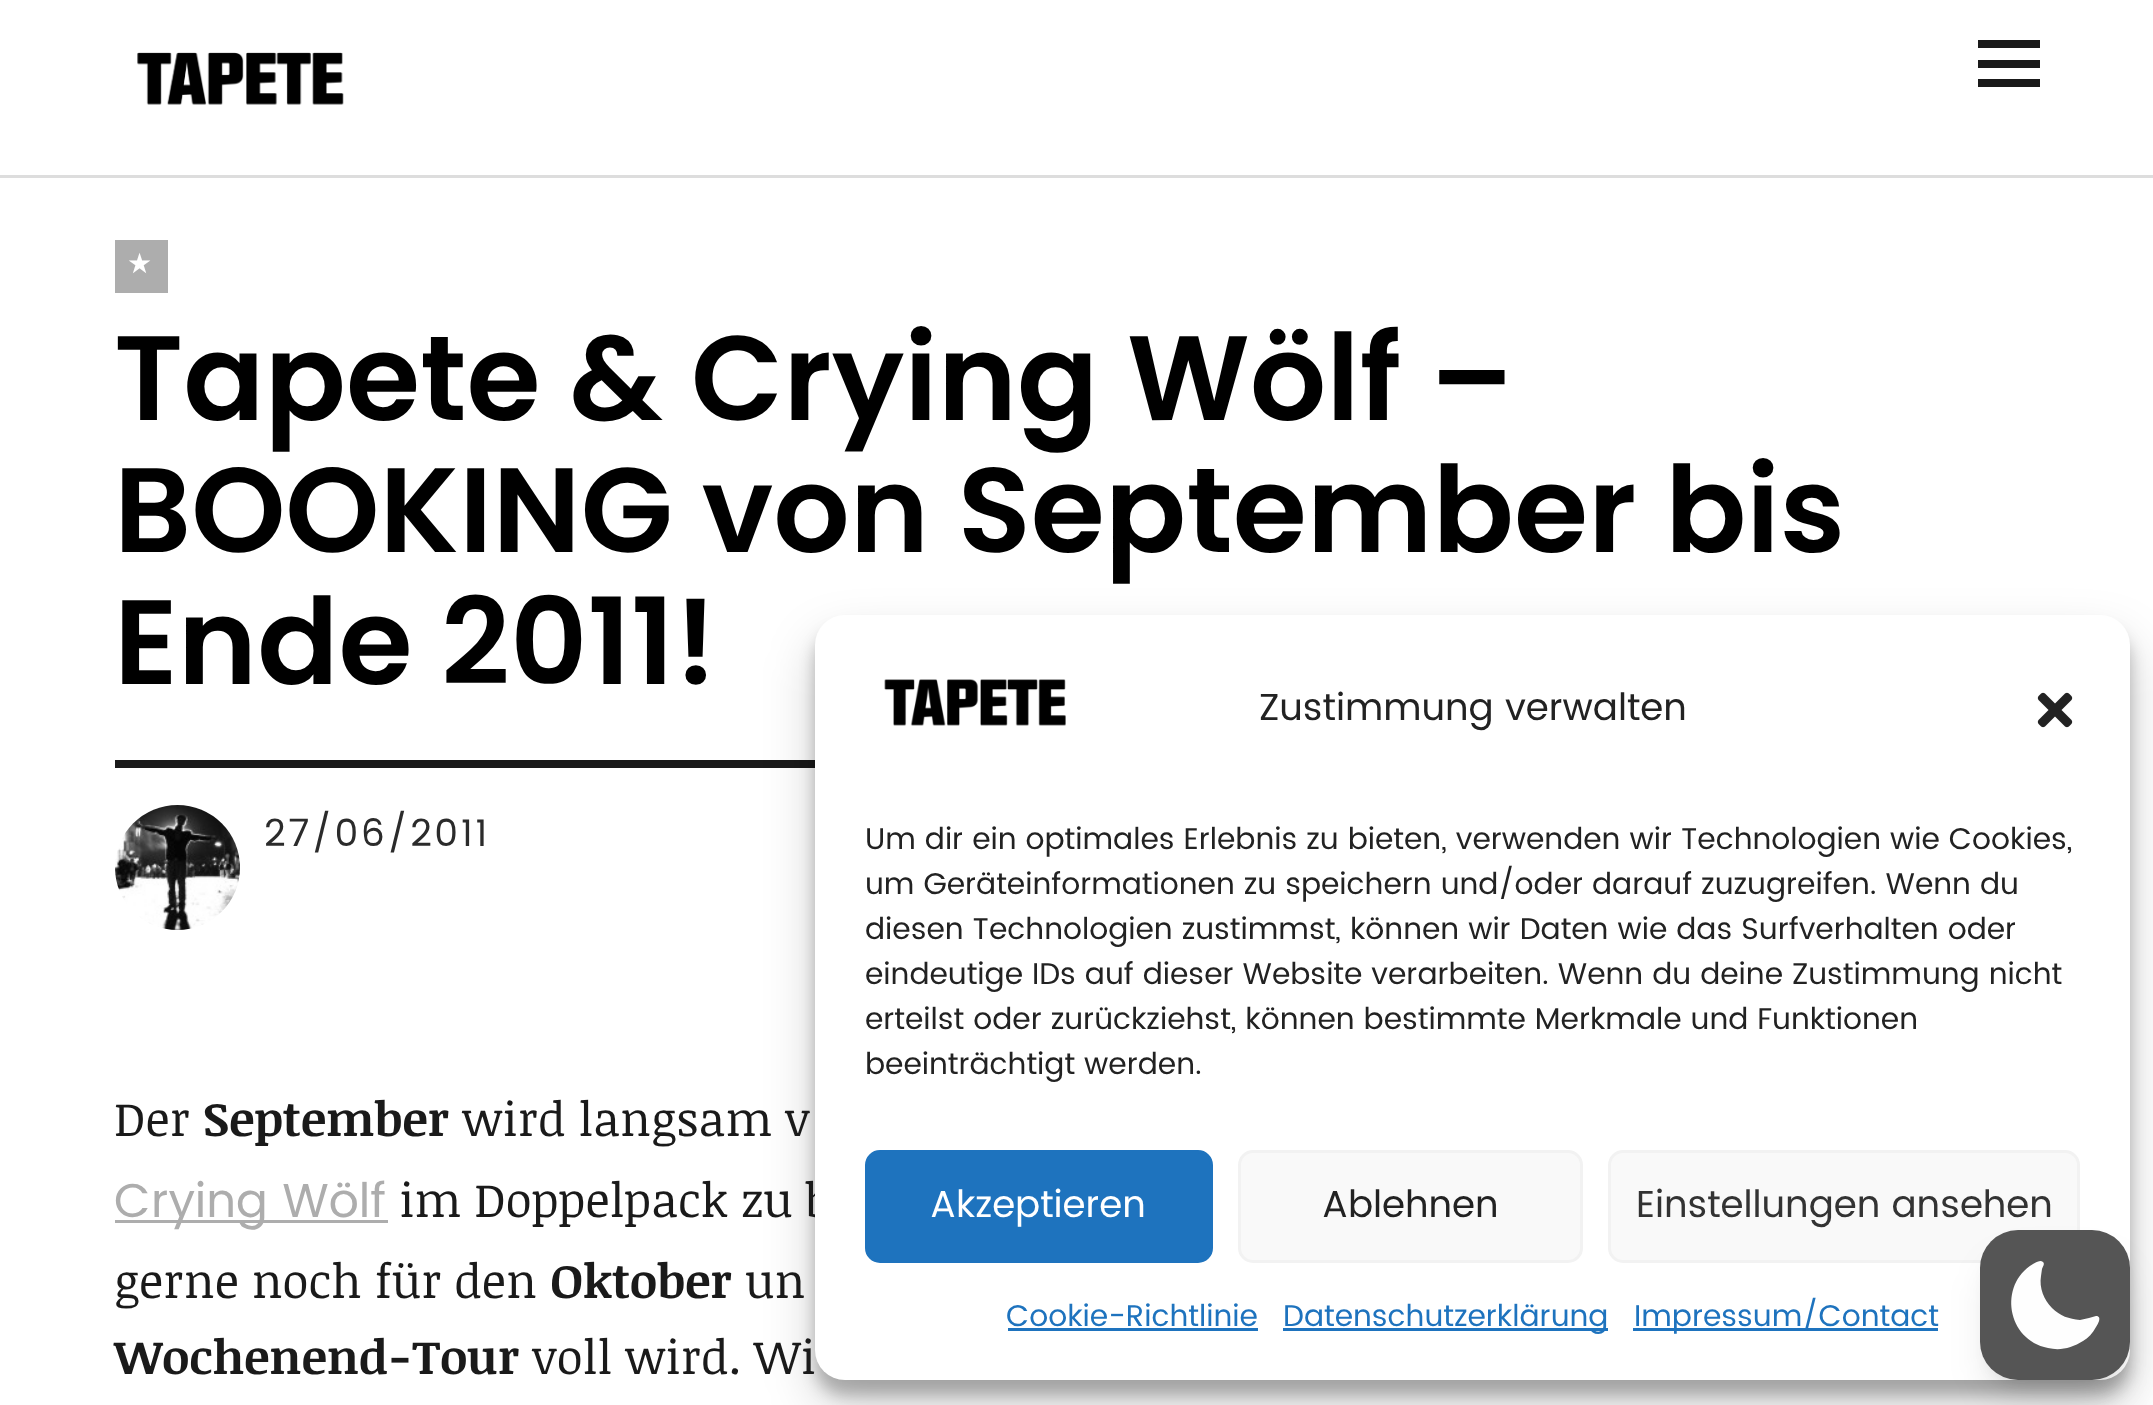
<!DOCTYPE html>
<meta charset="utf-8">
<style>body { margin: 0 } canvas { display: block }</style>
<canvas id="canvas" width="2153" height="1405"></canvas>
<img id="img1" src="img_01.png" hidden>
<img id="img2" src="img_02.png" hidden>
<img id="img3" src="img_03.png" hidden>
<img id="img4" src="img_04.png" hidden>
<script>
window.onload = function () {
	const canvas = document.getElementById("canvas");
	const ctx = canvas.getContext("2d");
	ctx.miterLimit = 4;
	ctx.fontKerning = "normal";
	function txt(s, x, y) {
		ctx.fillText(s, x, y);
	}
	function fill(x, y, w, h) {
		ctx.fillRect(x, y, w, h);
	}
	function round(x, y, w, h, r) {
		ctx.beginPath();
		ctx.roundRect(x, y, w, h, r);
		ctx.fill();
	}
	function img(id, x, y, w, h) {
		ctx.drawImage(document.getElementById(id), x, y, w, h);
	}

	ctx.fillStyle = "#FFFFFF";
	fill(0, 0, 2153, 1405);
	ctx.fillStyle = "#DDDDDD";
	fill(0, 175, 2153, 3);
	img("img1", 137, 52, 207, 53);
	ctx.fillStyle = "#1A1A1A";
	ctx.beginPath();
	ctx.moveTo(1978, 87);
	ctx.lineTo(1978, 79);
	ctx.lineTo(2040, 79);
	ctx.lineTo(2040, 87);
	ctx.closePath();
	ctx.moveTo(1978, 40);
	ctx.lineTo(2040, 40);
	ctx.lineTo(2040, 48);
	ctx.lineTo(1978, 48);
	ctx.closePath();
	ctx.moveTo(1978, 68);
	ctx.lineTo(1978, 60);
	ctx.lineTo(2040, 60);
	ctx.lineTo(2040, 68);
	ctx.closePath();
	ctx.fill();
	ctx.fillStyle = "#ADADAD";
	fill(115, 240, 53, 53);
	ctx.fillStyle = "#1A1A1A";
	fill(115, 760, 700, 8);
	img("img2", 115, 805, 125, 125);
	ctx.fillStyle = "#ADADAD";
	fill(115, 1220, 273, 3);
	ctx.fillStyle = "rgba(0, 0, 0, 0.23)";
	ctx.filter = "blur(7.5px)";
	ctx.beginPath();
	ctx.roundRect(815, 630, 1315, 765, 30);
	ctx.fill();
	ctx.filter = "none";
	ctx.fillStyle = "rgba(0, 0, 0, 0.19)";
	ctx.filter = "blur(25px)";
	ctx.beginPath();
	ctx.roundRect(815, 640, 1315, 765, 30);
	ctx.fill();
	ctx.filter = "none";
	ctx.letterSpacing = "2.5px";
	ctx.font = "28px DejaVu Sans";
	ctx.fillStyle = "#FFFFFF";
	txt("★", 127, 273);
	ctx.letterSpacing = "0px";
	ctx.font = "600 120px Poppins";
	ctx.fillStyle = "#000000";
	txt("Tapete & Crying Wölf –", 114, 420);
	txt("BOOKING von September bis", 114, 552);
	txt("Ende 2011!", 114, 684);
	ctx.letterSpacing = "2.5px";
	ctx.font = "37.5px Poppins";
	ctx.fillStyle = "#2B2B2B";
	txt("27/06/2011", 264, 846);
	ctx.letterSpacing = "0px";
	ctx.font = "47.5px Noticia Text";
	ctx.fillStyle = "#1A1A1A";
	txt("Der", 114, 1136);
	ctx.font = "bold 47.5px Noticia Text";
	txt("September", 203, 1136);
	ctx.font = "47.5px Noticia Text";
	txt("wird langsam v", 462, 1136);
	ctx.font = "47.5px Poppins";
	ctx.fillStyle = "#ADADAD";
	txt("Crying Wölf", 114, 1217);
	ctx.font = "47.5px Noticia Text";
	ctx.fillStyle = "#1A1A1A";
	txt("im Doppelpack zu b", 399, 1217);
	txt("gerne noch für den", 114, 1298);
	ctx.font = "bold 47.5px Noticia Text";
	txt("Oktober", 550, 1298);
	ctx.font = "47.5px Noticia Text";
	txt("un", 745, 1298);
	ctx.font = "bold 47.5px Noticia Text";
	txt("Wochenend-Tour", 114, 1374);
	ctx.font = "47.5px Noticia Text";
	txt("voll wird. Wi", 532, 1374);
	ctx.fillStyle = "#FFFFFF";
	round(815, 615, 1315, 765, 30);
	img("img3", 884, 679, 182, 47);
	ctx.font = "37.5px Poppins";
	ctx.fillStyle = "#222222";
	txt("Zustimmung verwalten", 1259, 720);
	img("img4", 2037, 692, 36, 36);
	ctx.font = "30px Poppins";
	txt("Um dir ein optimales Erlebnis zu bieten, verwenden wir Technologien wie Cookies,", 865, 849);
	txt("um Geräteinformationen zu speichern und/oder darauf zuzugreifen. Wenn du", 865, 894);
	txt("diesen Technologien zustimmst, können wir Daten wie das Surfverhalten oder", 865, 939);
	txt("eindeutige IDs auf dieser Website verarbeiten. Wenn du deine Zustimmung nicht", 865, 984);
	txt("erteilst oder zurückziehst, können bestimmte Merkmale und Funktionen", 865, 1029);
	txt("beeinträchtigt werden.", 865, 1074);
	ctx.fillStyle = "#1E73BE";
	ctx.beginPath();
	ctx.roundRect(866.5, 1151.5, 345, 110, 13.5);
	ctx.fill();
	ctx.strokeStyle = "#1E73BE";
	ctx.lineWidth = 3;
	ctx.stroke();
	ctx.font = "37.5px Poppins";
	ctx.fillStyle = "#FFFFFF";
	txt("Akzeptieren", 930, 1217);
	ctx.fillStyle = "#F9F9F9";
	ctx.beginPath();
	ctx.roundRect(1239.5, 1151.5, 342, 110, 13.5);
	ctx.fill();
	ctx.strokeStyle = "#F2F2F2";
	ctx.stroke();
	ctx.fillStyle = "#222222";
	txt("Ablehnen", 1322, 1217);
	ctx.fillStyle = "#F9F9F9";
	ctx.beginPath();
	ctx.roundRect(1609.5, 1151.5, 469, 110, 13.5);
	ctx.fill();
	ctx.stroke();
	ctx.fillStyle = "#333333";
	txt("Einstellungen ansehen", 1636, 1217);
	ctx.font = "30px Poppins";
	ctx.fillStyle = "#1E73BE";
	txt("Cookie-Richtlinie", 1006, 1326);
	fill(1008, 1328, 250, 3);
	fill(1283, 1328, 325, 3);
	txt("Datenschutzerklärung", 1283, 1326);
	fill(1633, 1328, 305, 3);
	txt("Impressum/Contact", 1634, 1326);
	ctx.fillStyle = "rgba(0, 0, 0, 0.1)";
	ctx.filter = "blur(7.5px)";
	ctx.beginPath();
	ctx.roundRect(1990, 1250, 130, 130, 28);
	ctx.fill();
	ctx.filter = "none";
	ctx.filter = "blur(19px)";
	ctx.beginPath();
	ctx.roundRect(1988, 1263, 135, 135, 30);
	ctx.fill();
	ctx.filter = "none";
	ctx.fillStyle = "#555555";
	round(1980, 1230, 150, 150, 38);
	ctx.fillStyle = "#FEFEFE";
	ctx.beginPath();
	ctx.moveTo(2043, 1262);
	ctx.bezierCurveTo(2045, 1264, 2043, 1266, 2042, 1269);
	ctx.lineTo(2041, 1276);
	ctx.bezierCurveTo(2039, 1288, 2044, 1300, 2052, 1308);
	ctx.bezierCurveTo(2060, 1316, 2069, 1319, 2080, 1320);
	ctx.lineTo(2089, 1318);
	ctx.lineTo(2096, 1316);
	ctx.bezierCurveTo(2103, 1316, 2097, 1326, 2096, 1327);
	ctx.bezierCurveTo(2093, 1333, 2088, 1338, 2083, 1341);
	ctx.bezierCurveTo(2072, 1348, 2060, 1351, 2048, 1348);
	ctx.bezierCurveTo(2007, 1340, 1998, 1285, 2033, 1264);
	ctx.bezierCurveTo(2035, 1263, 2040, 1259, 2043, 1262);
	ctx.closePath();
	ctx.fill("evenodd");
};
</script>
